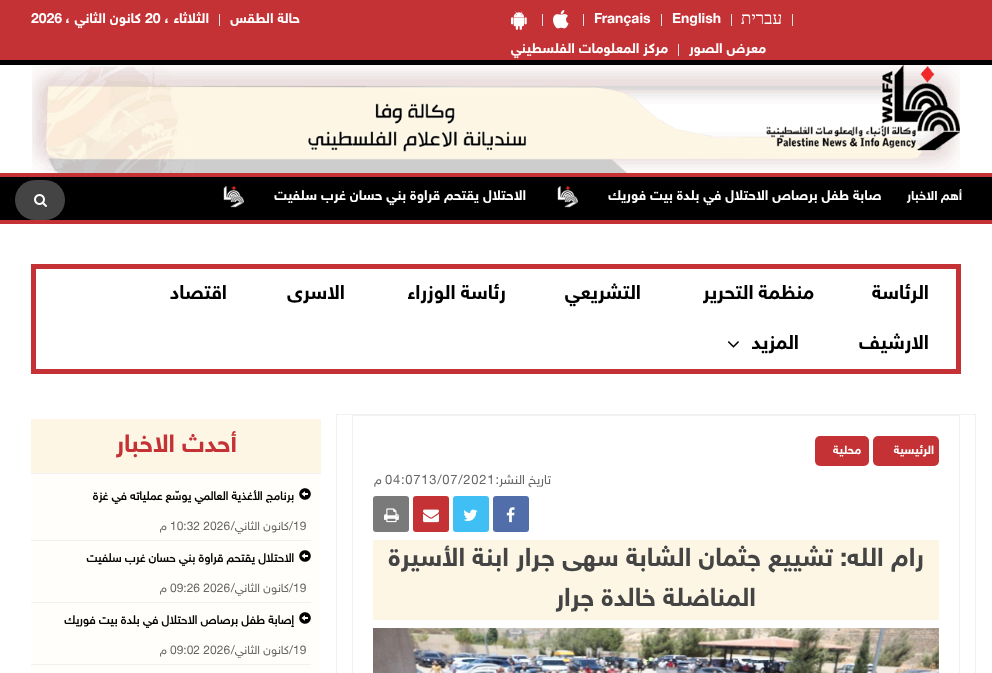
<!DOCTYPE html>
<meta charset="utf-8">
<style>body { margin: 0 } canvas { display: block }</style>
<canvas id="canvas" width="992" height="673"></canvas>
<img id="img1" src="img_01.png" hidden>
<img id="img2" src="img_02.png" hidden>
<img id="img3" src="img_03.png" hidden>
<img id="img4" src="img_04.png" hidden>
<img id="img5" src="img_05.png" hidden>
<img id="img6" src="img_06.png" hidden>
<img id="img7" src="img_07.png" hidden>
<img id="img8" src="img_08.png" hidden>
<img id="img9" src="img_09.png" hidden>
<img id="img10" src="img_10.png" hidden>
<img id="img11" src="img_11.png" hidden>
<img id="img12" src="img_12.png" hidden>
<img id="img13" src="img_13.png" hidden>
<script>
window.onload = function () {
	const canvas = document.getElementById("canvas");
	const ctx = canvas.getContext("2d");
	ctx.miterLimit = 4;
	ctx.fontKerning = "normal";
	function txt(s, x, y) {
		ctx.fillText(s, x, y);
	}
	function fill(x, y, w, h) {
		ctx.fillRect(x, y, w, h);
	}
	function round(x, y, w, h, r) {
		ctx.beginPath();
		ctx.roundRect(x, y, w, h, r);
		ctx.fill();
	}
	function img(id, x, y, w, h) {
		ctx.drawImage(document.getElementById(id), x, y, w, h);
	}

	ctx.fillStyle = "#FFFFFF";
	fill(0, 0, 992, 673);
	ctx.fillStyle = "#C43235";
	fill(0, 0, 992, 60);
	ctx.fillStyle = "#000000";
	fill(0, 60, 992, 5);
	ctx.fillStyle = "#E5E5E5";
	fill(792, 14, 1, 12);
	fill(731, 14, 1, 12);
	fill(661, 14, 1, 12);
	fill(583, 14, 1, 12);
	img("img1", 553, 9, 16, 20);
	fill(542, 14, 1, 12);
	img("img2", 511, 11, 16, 19);
	fill(678, 44, 1, 12);
	fill(219, 14, 1, 12);
	img("img3", 32, 65, 928, 108);
	ctx.fillStyle = "#000000";
	fill(0, 177, 992, 43);
	ctx.fillStyle = "#C43235";
	fill(0, 173, 992, 4);
	fill(0, 220, 992, 4);
	img("img4", 557, 186, 21, 22);
	img("img5", 223, 186, 21, 22);
	ctx.fillStyle = "#444444";
	round(15, 180, 50, 40, 20);
	img("img6", 34, 194, 13, 13);
	ctx.strokeStyle = "#C43235";
	ctx.lineWidth = 5;
	ctx.strokeRect(33.5, 266.5, 925, 105);
	img("img7", 727, 341, 12, 7);
	ctx.strokeStyle = "#F1F1F1";
	ctx.lineWidth = 1;
	ctx.strokeRect(336.5, 414.5, 639, 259);
	ctx.strokeRect(352.5, 415.5, 607, 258);
	ctx.fillStyle = "#C43235";
	round(873, 436, 66, 30, 5);
	round(815, 436, 54, 30, 5);
	ctx.fillStyle = "#516EAB";
	round(493, 496, 36, 36, 3);
	img("img8", 506, 507, 9, 16);
	ctx.fillStyle = "#40BFF5";
	round(453, 496, 36, 36, 3);
	img("img9", 463, 509, 15, 12);
	ctx.fillStyle = "#C43235";
	round(413, 496, 36, 36, 3);
	img("img10", 423, 509, 16, 14);
	ctx.fillStyle = "#7B7A7A";
	round(373, 496, 36, 36, 3);
	img("img11", 384, 508, 15, 15);
	ctx.fillStyle = "#FDF6E4";
	fill(373, 540, 566, 80);
	img("img12", 373, 628, 566, 45);
	fill(31, 419, 290, 54);
	ctx.fillStyle = "#F1F1F1";
	fill(31, 473, 290, 1);
	ctx.fillStyle = "#FFFEFA";
	fill(31, 474, 290, 199);
	ctx.fillStyle = "#F1F1F1";
	fill(31, 540, 280, 1);
	img("img13", 299, 488, 12, 12);
	fill(31, 602, 280, 1);
	img("img13", 299, 550, 12, 12);
	fill(31, 664, 280, 1);
	img("img13", 299, 612, 12, 12);
	ctx.direction = "rtl";
	ctx.font = "17px Liberation Serif";
	ctx.fillStyle = "#FFFFFF";
	txt("עברית", 782, 24);
	ctx.direction = "ltr";
	ctx.font = "bold 14px 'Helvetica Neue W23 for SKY'";
	txt("English", 672, 23);
	txt("Français", 594, 23);
	ctx.direction = "rtl";
	txt("معرض الصور", 766, 53);
	txt("مركز المعلومات الفلسطيني", 668, 53);
	txt("حالة الطقس", 300, 23);
	txt("الثلاثاء ،", 209, 23);
	ctx.direction = "ltr";
	txt("20", 145, 23);
	ctx.direction = "rtl";
	txt("كانون الثاني ،", 141, 23);
	ctx.direction = "ltr";
	txt("2026", 31, 23);
	ctx.letterSpacing = "0.5px";
	ctx.wordSpacing = "-1px";
	ctx.direction = "rtl";
	ctx.font = "bold 13px 'Helvetica Neue W23 for SKY'";
	txt("أهم الاخبار", 962, 200);
	ctx.save();
	ctx.beginPath();
	ctx.rect(150, 185, 731, 35);
	ctx.clip();
	ctx.letterSpacing = "0px";
	ctx.wordSpacing = "0px";
	ctx.font = "bold 14px 'Helvetica Neue W23 for SKY'";
	txt("إصابة طفل برصاص الاحتلال في بلدة بيت فوريك", 885, 200);
	ctx.restore();
	ctx.letterSpacing = "0px";
	ctx.wordSpacing = "0px";
	ctx.font = "bold 14px 'Helvetica Neue W23 for SKY'";
	txt("الاحتلال يقتحم قراوة بني حسان غرب سلفيت", 526, 200);
	ctx.letterSpacing = "0.5px";
	ctx.font = "bold 20px 'Helvetica Neue W23 for SKY'";
	ctx.fillStyle = "#000000";
	txt("الرئاسة", 929, 299);
	ctx.wordSpacing = "-1px";
	txt("منظمة التحرير", 814, 299);
	ctx.wordSpacing = "0px";
	txt("التشريعي", 641, 299);
	ctx.wordSpacing = "-1px";
	txt("رئاسة الوزراء", 506, 299);
	ctx.wordSpacing = "0px";
	txt("الاسرى", 345, 299);
	txt("اقتصاد", 227, 299);
	txt("الارشيف", 929, 349);
	txt("المزيد", 799, 349);
	ctx.letterSpacing = "1px";
	ctx.font = "bold 12px 'Helvetica Neue W23 for SKY'";
	ctx.fillStyle = "#FFFFFF";
	txt("الرئيسية", 934, 454);
	txt("محلية", 861, 454);
	ctx.letterSpacing = "0.75px";
	ctx.direction = "ltr";
	ctx.font = "13px 'Helvetica Neue W23 for SKY'";
	ctx.fillStyle = "#666666";
	txt("04:0713/07/2021", 385, 484);
	ctx.wordSpacing = "-1px";
	ctx.direction = "rtl";
	txt("تاريخ النشر:", 551, 484);
	ctx.wordSpacing = "0px";
	txt("م", 382, 484);
	ctx.letterSpacing = "0px";
	ctx.font = "bold 26px 'Helvetica Neue W23 for SKY'";
	ctx.fillStyle = "#444444";
	txt("رام الله: تشييع جثمان الشابة سهى جرار ابنة الأسيرة", 924, 566);
	txt("المناضلة خالدة جرار", 756, 606);
	ctx.font = "bold 25px 'Helvetica Neue W23 for SKY'";
	ctx.fillStyle = "#C43235";
	txt("أحدث الاخبار", 237, 452);
	ctx.font = "bold 12px 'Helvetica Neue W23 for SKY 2'";
	ctx.fillStyle = "#000000";
	txt("برنامج الأغذية العالمي يوسّع عملياته في غزة", 294, 500);
	ctx.direction = "ltr";
	ctx.font = "12px 'Helvetica Neue W23 for SKY'";
	ctx.fillStyle = "#666666";
	txt("19", 293, 530);
	ctx.direction = "rtl";
	txt("/كانون الثاني/", 293, 530);
	ctx.direction = "ltr";
	txt("10:32 2026", 170, 530);
	ctx.direction = "rtl";
	txt("م", 167, 530);
	ctx.font = "bold 12px 'Helvetica Neue W23 for SKY 2'";
	ctx.fillStyle = "#000000";
	txt("الاحتلال يقتحم قراوة بني حسان غرب سلفيت", 294, 562);
	ctx.direction = "ltr";
	ctx.font = "12px 'Helvetica Neue W23 for SKY'";
	ctx.fillStyle = "#666666";
	txt("19", 293, 592);
	ctx.direction = "rtl";
	txt("/كانون الثاني/", 293, 592);
	ctx.direction = "ltr";
	txt("09:26 2026", 170, 592);
	ctx.direction = "rtl";
	txt("م", 167, 592);
	ctx.font = "bold 12px 'Helvetica Neue W23 for SKY 2'";
	ctx.fillStyle = "#000000";
	txt("إصابة طفل برصاص الاحتلال في بلدة بيت فوريك", 294, 624);
	ctx.direction = "ltr";
	ctx.font = "12px 'Helvetica Neue W23 for SKY'";
	ctx.fillStyle = "#666666";
	txt("19", 293, 654);
	ctx.direction = "rtl";
	txt("/كانون الثاني/", 293, 654);
	ctx.direction = "ltr";
	txt("09:02 2026", 170, 654);
	ctx.direction = "rtl";
	txt("م", 167, 654);
};
</script>
